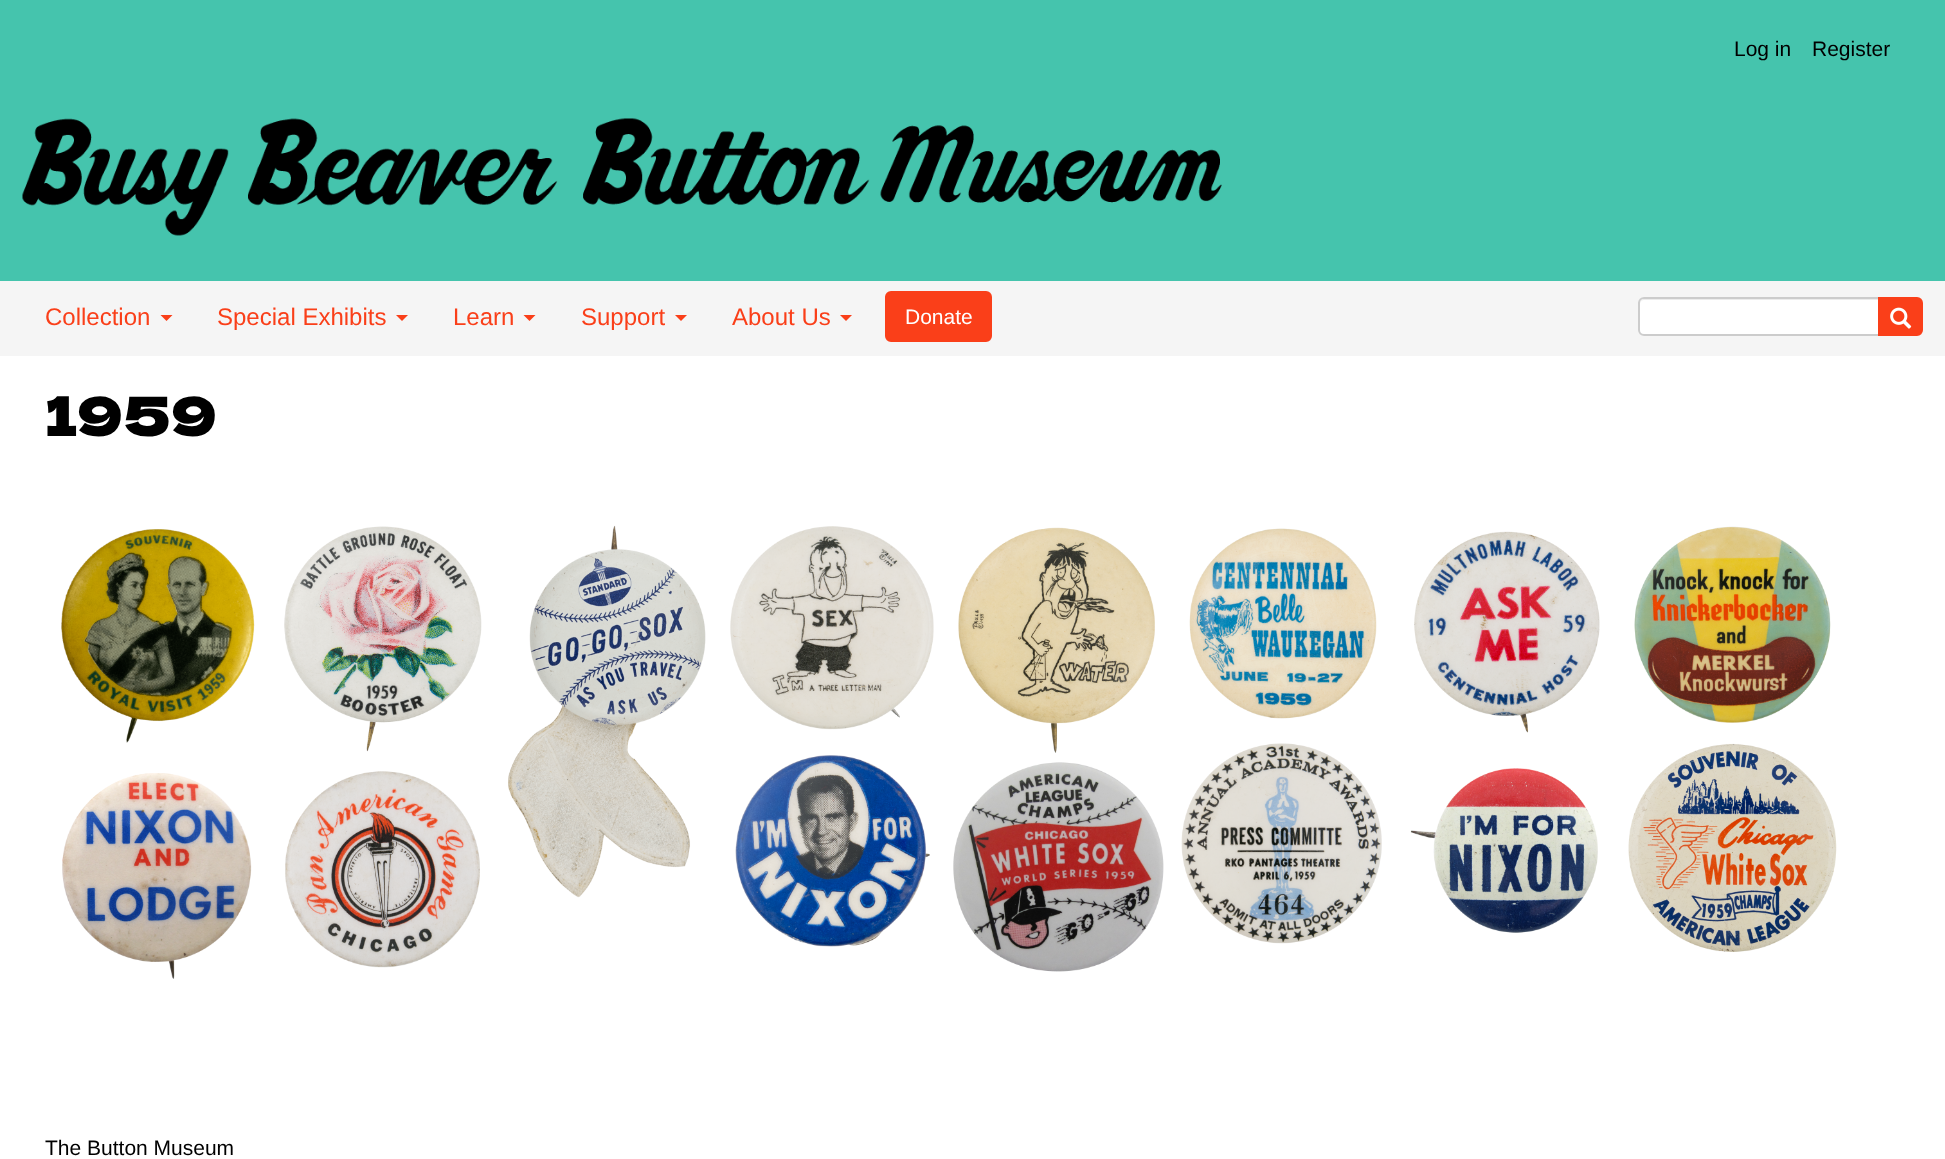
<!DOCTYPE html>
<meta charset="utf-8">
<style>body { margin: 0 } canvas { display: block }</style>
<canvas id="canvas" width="1945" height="1159"></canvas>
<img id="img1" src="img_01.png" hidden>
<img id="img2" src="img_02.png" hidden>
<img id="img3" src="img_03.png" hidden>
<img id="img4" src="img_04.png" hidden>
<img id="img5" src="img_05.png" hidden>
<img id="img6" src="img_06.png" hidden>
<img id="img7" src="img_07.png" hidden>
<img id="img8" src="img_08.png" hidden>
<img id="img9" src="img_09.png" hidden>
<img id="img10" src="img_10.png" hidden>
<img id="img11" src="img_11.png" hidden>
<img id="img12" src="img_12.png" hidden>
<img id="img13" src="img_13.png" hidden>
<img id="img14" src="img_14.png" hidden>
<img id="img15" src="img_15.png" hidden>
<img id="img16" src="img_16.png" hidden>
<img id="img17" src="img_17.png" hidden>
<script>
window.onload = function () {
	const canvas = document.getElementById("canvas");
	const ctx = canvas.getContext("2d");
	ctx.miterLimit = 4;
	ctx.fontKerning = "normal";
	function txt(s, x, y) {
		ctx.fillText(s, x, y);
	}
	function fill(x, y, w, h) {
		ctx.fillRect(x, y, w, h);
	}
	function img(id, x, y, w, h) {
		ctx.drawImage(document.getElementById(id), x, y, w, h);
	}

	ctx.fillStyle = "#FFFFFF";
	fill(0, 0, 1945, 1159);
	ctx.fillStyle = "#45C4AD";
	fill(0, 0, 1945, 281);
	img("img1", 22, 118, 1200, 118);
	ctx.fillStyle = "#F5F5F5";
	fill(0, 281, 1945, 75);
	ctx.fillStyle = "#FA3F19";
	ctx.beginPath();
	ctx.moveTo(160.5, 315);
	ctx.lineTo(172.5, 315);
	ctx.lineTo(166.5, 321);
	ctx.closePath();
	ctx.fill();
	ctx.beginPath();
	ctx.moveTo(396, 315);
	ctx.lineTo(408, 315);
	ctx.lineTo(402, 321);
	ctx.closePath();
	ctx.fill();
	ctx.beginPath();
	ctx.moveTo(523.5, 315);
	ctx.lineTo(535.5, 315);
	ctx.lineTo(529.5, 321);
	ctx.closePath();
	ctx.fill();
	ctx.beginPath();
	ctx.moveTo(675, 315);
	ctx.lineTo(687, 315);
	ctx.lineTo(681, 321);
	ctx.closePath();
	ctx.fill();
	ctx.beginPath();
	ctx.moveTo(840, 315);
	ctx.lineTo(852, 315);
	ctx.lineTo(846, 321);
	ctx.closePath();
	ctx.fill();
	ctx.beginPath();
	ctx.roundRect(886, 292, 105, 49, 5);
	ctx.fill();
	ctx.strokeStyle = "#FA3F19";
	ctx.lineWidth = 2;
	ctx.stroke();
	ctx.fillStyle = "#FFFFFF";
	ctx.beginPath();
	ctx.roundRect(1638, 297, 242, 39, [6, 0, 0, 6]);
	ctx.fill();
	ctx.fillStyle = "#ECECEC";
	ctx.beginPath();
	ctx.moveTo(1644, 300);
	ctx.lineTo(1878, 300);
	ctx.lineTo(1878, 299);
	ctx.lineTo(1645, 299);
	ctx.bezierCurveTo(1642, 299, 1640, 301, 1640, 304);
	ctx.bezierCurveTo(1640, 302, 1642, 300, 1644, 300);
	ctx.closePath();
	ctx.fill();
	ctx.beginPath();
	ctx.roundRect(1639, 298, 240, 37, [5, 0, 0, 5]);
	ctx.strokeStyle = "#CCCCCC";
	ctx.stroke();
	ctx.fillStyle = "#FA3F19";
	ctx.beginPath();
	ctx.roundRect(1879, 298, 43, 37, [0, 5, 5, 0]);
	ctx.fill();
	ctx.strokeStyle = "#FA3F19";
	ctx.stroke();
	img("img2", 1890, 307, 22, 22);
	img("img3", 61, 529, 194, 214);
	img("img4", 284, 526, 198, 226);
	img("img5", 508, 525, 198, 373);
	img("img6", 730, 526, 204, 204);
	img("img7", 958, 527, 197, 226);
	img("img8", 1189, 528, 188, 191);
	img("img9", 1414, 531, 186, 202);
	img("img10", 1634, 526, 197, 197);
	img("img11", 62, 773, 190, 206);
	img("img12", 285, 771, 195, 197);
	img("img13", 735, 755, 195, 192);
	img("img14", 953, 762, 211, 210);
	img("img15", 1181, 743, 201, 201);
	img("img16", 1410, 768, 188, 165);
	img("img17", 1628, 743, 209, 209);
	ctx.font = "21px Liberation Sans";
	ctx.fillStyle = "#000000";
	txt("Log in", 1734, 56);
	txt("Register", 1812, 56);
	ctx.font = "24px Liberation Sans";
	ctx.fillStyle = "#FA3F19";
	txt("Collection", 45, 325);
	txt("Special Exhibits", 217, 325);
	txt("Learn", 453, 325);
	txt("Support", 581, 325);
	txt("About Us", 732, 325);
	ctx.font = "21px Liberation Sans";
	ctx.fillStyle = "#FFFFFF";
	txt("Donate", 905, 324);
	ctx.font = "54px Dela Gothic One";
	ctx.fillStyle = "#000000";
	txt("1959", 45, 436);
	ctx.font = "21px Liberation Sans";
	txt("The Button Museum", 45, 1155);
};
</script>
